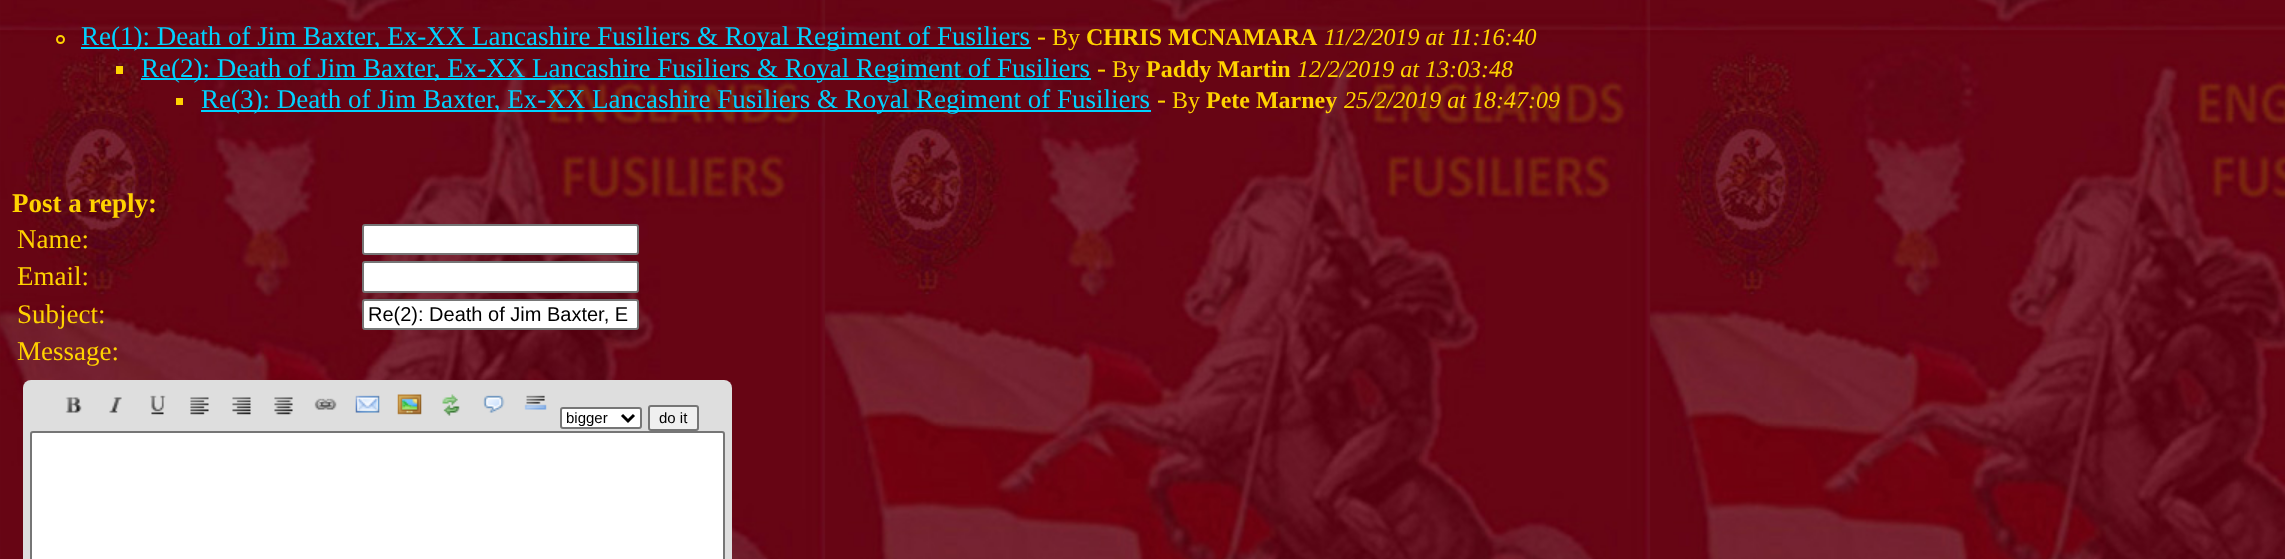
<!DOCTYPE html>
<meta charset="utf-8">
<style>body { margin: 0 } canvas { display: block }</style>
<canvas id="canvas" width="2285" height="559"></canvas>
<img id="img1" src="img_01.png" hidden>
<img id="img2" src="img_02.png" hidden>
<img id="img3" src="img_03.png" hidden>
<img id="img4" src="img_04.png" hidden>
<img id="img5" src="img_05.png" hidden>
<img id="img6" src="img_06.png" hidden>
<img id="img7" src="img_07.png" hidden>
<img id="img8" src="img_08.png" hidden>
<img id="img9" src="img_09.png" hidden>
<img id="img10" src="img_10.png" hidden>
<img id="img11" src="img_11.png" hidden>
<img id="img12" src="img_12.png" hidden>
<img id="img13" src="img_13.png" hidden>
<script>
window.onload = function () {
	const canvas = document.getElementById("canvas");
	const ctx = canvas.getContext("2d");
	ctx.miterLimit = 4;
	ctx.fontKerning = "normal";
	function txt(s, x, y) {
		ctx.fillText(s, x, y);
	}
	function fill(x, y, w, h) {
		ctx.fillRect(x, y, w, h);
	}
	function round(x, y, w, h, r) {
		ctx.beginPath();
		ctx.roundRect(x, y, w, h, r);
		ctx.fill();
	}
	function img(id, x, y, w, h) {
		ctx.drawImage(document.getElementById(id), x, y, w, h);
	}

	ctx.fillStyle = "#FFFFFF";
	fill(0, 0, 2285, 559);
	img("img1", 0, 0, 2285, 559);
	ctx.beginPath();
	ctx.arc(60.5, 39.5, 3.5, 0, Math.PI * 2);
	ctx.strokeStyle = "#FFD200";
	ctx.lineWidth = 2;
	ctx.stroke();
	ctx.fillStyle = "#00D2FF";
	fill(81, 47, 950, 2);
	ctx.fillStyle = "#FFD200";
	fill(116, 66, 7, 8);
	ctx.fillStyle = "#00D2FF";
	fill(141, 78, 950, 2);
	ctx.fillStyle = "#FFD200";
	fill(176, 98, 7, 7);
	ctx.fillStyle = "#00D2FF";
	fill(201, 110, 950, 2);
	ctx.fillStyle = "#FFFFFF";
	ctx.beginPath();
	ctx.roundRect(363, 225, 275, 29, 2);
	ctx.fill();
	ctx.strokeStyle = "#767676";
	ctx.stroke();
	ctx.beginPath();
	ctx.roundRect(363, 262, 275, 30, 2);
	ctx.fill();
	ctx.stroke();
	ctx.beginPath();
	ctx.roundRect(363, 300, 275, 29, 2);
	ctx.fill();
	ctx.stroke();
	ctx.fillStyle = "#DEDEDE";
	round(23, 380, 709, 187, 8);
	img("img2", 65, 397, 17, 16);
	img("img3", 109, 397, 13, 16);
	img("img4", 150, 395, 16, 20);
	img("img5", 190, 397, 19, 18);
	img("img6", 232, 397, 19, 18);
	img("img7", 274, 397, 19, 18);
	img("img8", 314, 398, 23, 12);
	img("img9", 355, 395, 25, 18);
	img("img10", 397, 394, 25, 21);
	img("img11", 442, 394, 18, 22);
	img("img12", 483, 395, 22, 18);
	img("img13", 524, 395, 23, 15);
	ctx.fillStyle = "#FFFFFF";
	ctx.beginPath();
	ctx.roundRect(561, 408, 80, 20, 2);
	ctx.fill();
	ctx.stroke();
	ctx.beginPath();
	ctx.moveTo(622, 415);
	ctx.lineTo(628, 421);
	ctx.lineTo(634, 415);
	ctx.strokeStyle = "#000000";
	ctx.lineWidth = 3;
	ctx.stroke();
	ctx.fillStyle = "#EFEFEF";
	ctx.beginPath();
	ctx.roundRect(649, 406, 49, 24, 2);
	ctx.fill();
	ctx.strokeStyle = "#767676";
	ctx.lineWidth = 2;
	ctx.stroke();
	ctx.fillStyle = "#FFFFFF";
	ctx.beginPath();
	ctx.roundRect(31, 432, 693, 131, 2);
	ctx.fill();
	ctx.stroke();
	ctx.font = "27px Liberation Serif";
	ctx.fillStyle = "#00D2FF";
	txt("Re(1): Death of Jim Baxter, Ex-XX Lancashire Fusiliers & Royal Regiment of Fusiliers", 81, 45);
	ctx.fillStyle = "#FFD200";
	txt("-", 1037, 45);
	ctx.font = "24px Liberation Serif";
	txt("By", 1052, 45);
	ctx.font = "bold 24px Liberation Serif";
	txt("CHRIS MCNAMARA", 1086, 45);
	ctx.font = "italic 24px Liberation Serif";
	txt("11/2/2019 at 11:16:40", 1324, 45);
	ctx.font = "27px Liberation Serif";
	ctx.fillStyle = "#00D2FF";
	txt("Re(2): Death of Jim Baxter, Ex-XX Lancashire Fusiliers & Royal Regiment of Fusiliers", 141, 77);
	ctx.fillStyle = "#FFD200";
	txt("-", 1097, 77);
	ctx.font = "24px Liberation Serif";
	txt("By", 1112, 77);
	ctx.font = "bold 24px Liberation Serif";
	txt("Paddy Martin", 1146, 77);
	ctx.font = "italic 24px Liberation Serif";
	txt("12/2/2019 at 13:03:48", 1297, 77);
	ctx.font = "27px Liberation Serif";
	ctx.fillStyle = "#00D2FF";
	txt("Re(3): Death of Jim Baxter, Ex-XX Lancashire Fusiliers & Royal Regiment of Fusiliers", 201, 108);
	ctx.fillStyle = "#FFD200";
	txt("-", 1157, 108);
	ctx.font = "24px Liberation Serif";
	txt("By", 1172, 108);
	ctx.font = "bold 24px Liberation Serif";
	txt("Pete Marney", 1206, 108);
	ctx.font = "italic 24px Liberation Serif";
	txt("25/2/2019 at 18:47:09", 1344, 108);
	ctx.font = "bold 27px Liberation Serif";
	txt("Post a reply:", 12, 212);
	ctx.font = "27px Liberation Serif";
	txt("Name:", 17, 248);
	txt("Email:", 17, 285);
	txt("Subject:", 17, 323);
	ctx.font = "20px Liberation Sans";
	ctx.fillStyle = "#000000";
	txt("Re(2): Death of Jim Baxter, E", 368, 321);
	ctx.font = "27px Liberation Serif";
	ctx.fillStyle = "#FFD200";
	txt("Message:", 17, 360);
	ctx.font = "15px Liberation Sans";
	ctx.fillStyle = "#000000";
	txt("bigger", 566, 423);
	txt("do it", 659, 423);
};
</script>
